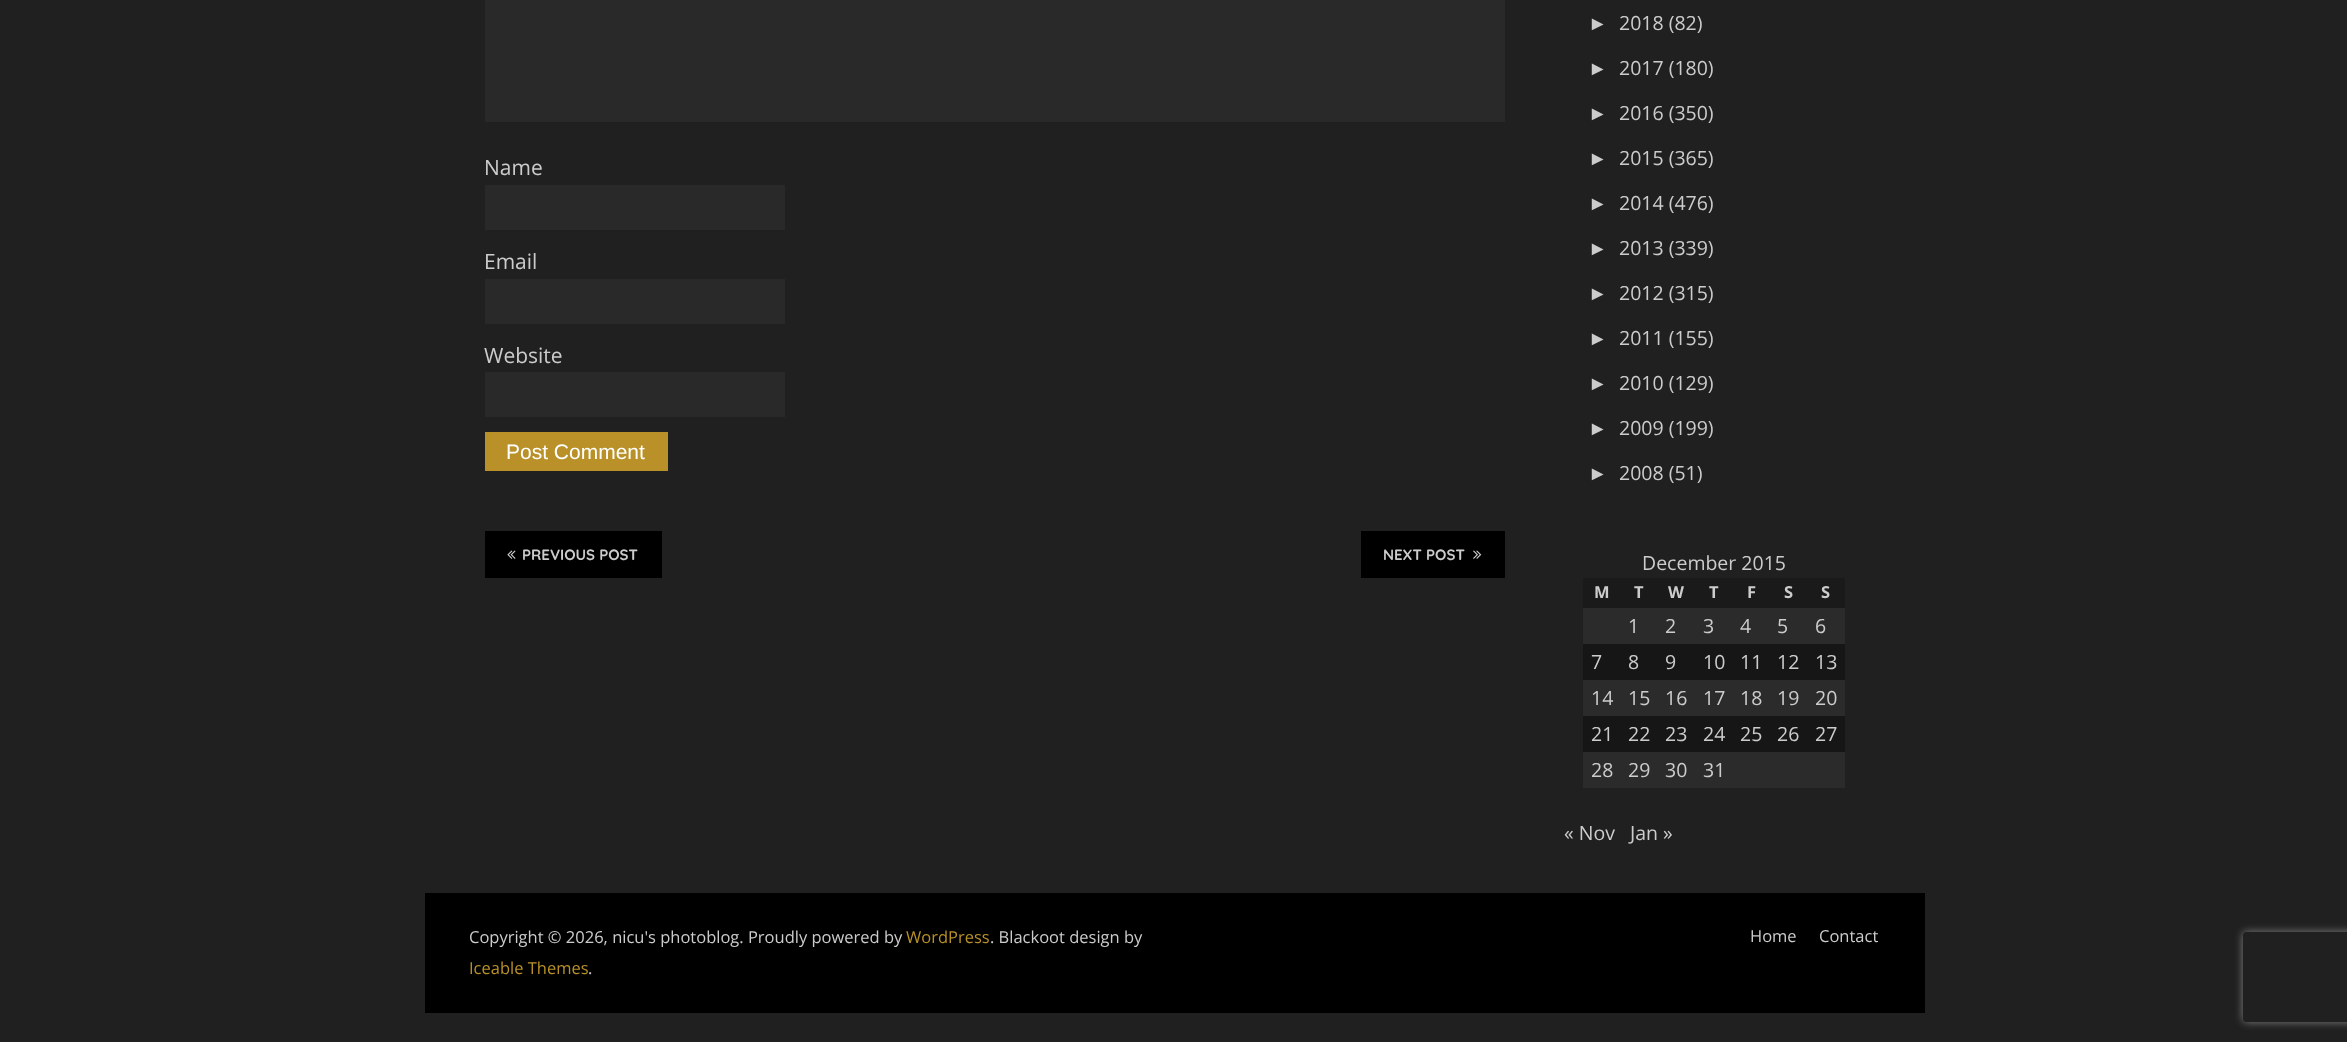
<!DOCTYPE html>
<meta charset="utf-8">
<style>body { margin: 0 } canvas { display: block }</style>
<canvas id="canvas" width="2347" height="1042"></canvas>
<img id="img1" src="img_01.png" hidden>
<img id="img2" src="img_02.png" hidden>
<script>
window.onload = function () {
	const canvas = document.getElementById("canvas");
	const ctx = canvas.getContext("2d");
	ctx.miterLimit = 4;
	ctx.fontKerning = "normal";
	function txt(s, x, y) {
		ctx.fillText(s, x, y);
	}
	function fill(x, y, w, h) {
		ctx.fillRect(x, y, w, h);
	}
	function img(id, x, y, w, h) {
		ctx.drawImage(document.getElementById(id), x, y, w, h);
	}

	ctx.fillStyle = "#202020";
	fill(0, 0, 2347, 1042);
	ctx.fillStyle = "#292929";
	fill(485, 0, 1020, 122);
	fill(485, 185, 300, 45);
	fill(485, 279, 300, 45);
	fill(485, 372, 300, 45);
	ctx.fillStyle = "#B99128";
	fill(485, 432, 183, 39);
	ctx.fillStyle = "#000000";
	fill(485, 531, 177, 47);
	img("img1", 507, 550, 9, 9);
	fill(1361, 531, 144, 47);
	img("img2", 1473, 550, 9, 9);
	ctx.fillStyle = "#1A1A1A";
	fill(1583, 578, 262, 30);
	ctx.fillStyle = "#2B2B2B";
	fill(1583, 608, 262, 36);
	ctx.fillStyle = "#161616";
	fill(1583, 644, 262, 36);
	ctx.fillStyle = "#2B2B2B";
	fill(1583, 680, 262, 36);
	ctx.fillStyle = "#161616";
	fill(1583, 716, 262, 36);
	ctx.fillStyle = "#2B2B2B";
	fill(1583, 752, 262, 36);
	ctx.fillStyle = "#000000";
	fill(425, 893, 1500, 120);
	ctx.save();
	ctx.beginPath();
	ctx.moveTo(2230, 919);
	ctx.lineTo(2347, 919);
	ctx.lineTo(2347, 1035);
	ctx.lineTo(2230, 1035);
	ctx.closePath();
	ctx.moveTo(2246, 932);
	ctx.lineTo(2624, 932);
	ctx.bezierCurveTo(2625.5, 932, 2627, 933.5, 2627, 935);
	ctx.lineTo(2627, 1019);
	ctx.bezierCurveTo(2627, 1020.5, 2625.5, 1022, 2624, 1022);
	ctx.lineTo(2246, 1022);
	ctx.bezierCurveTo(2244.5, 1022, 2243, 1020.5, 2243, 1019);
	ctx.lineTo(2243, 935);
	ctx.bezierCurveTo(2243, 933.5, 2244.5, 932, 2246, 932);
	ctx.closePath();
	ctx.clip("evenodd");
	ctx.fillStyle = "#808080";
	ctx.filter = "blur(4px)";
	ctx.beginPath();
	ctx.roundRect(2243, 932, 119, 90, 3);
	ctx.fill();
	ctx.filter = "none";
	ctx.restore();
	ctx.font = "21px Open Sans";
	ctx.fillStyle = "#CCCCCC";
	txt("Name", 484, 175);
	txt("Email", 484, 269);
	txt("Website", 484, 363);
	ctx.font = "21px Liberation Sans";
	ctx.fillStyle = "#FFFFFF";
	txt("Post Comment", 506, 459);
	ctx.font = "bold 15px Quicksand";
	ctx.fillStyle = "#CCCCCC";
	txt("PREVIOUS POST", 522, 560);
	txt("NEXT POST", 1383, 560);
	ctx.font = "19.5px Liberation Sans";
	txt("►", 1588, 30);
	ctx.font = "19.5px Open Sans";
	txt("2018 (82)", 1619, 30);
	ctx.font = "19.5px Liberation Sans";
	txt("►", 1588, 75);
	ctx.font = "19.5px Open Sans";
	txt("2017 (180)", 1619, 75);
	ctx.font = "19.5px Liberation Sans";
	txt("►", 1588, 120);
	ctx.font = "19.5px Open Sans";
	txt("2016 (350)", 1619, 120);
	ctx.font = "19.5px Liberation Sans";
	txt("►", 1588, 165);
	ctx.font = "19.5px Open Sans";
	txt("2015 (365)", 1619, 165);
	ctx.font = "19.5px Liberation Sans";
	txt("►", 1588, 210);
	ctx.font = "19.5px Open Sans";
	txt("2014 (476)", 1619, 210);
	ctx.font = "19.5px Liberation Sans";
	txt("►", 1588, 255);
	ctx.font = "19.5px Open Sans";
	txt("2013 (339)", 1619, 255);
	ctx.font = "19.5px Liberation Sans";
	txt("►", 1588, 300);
	ctx.font = "19.5px Open Sans";
	txt("2012 (315)", 1619, 300);
	ctx.font = "19.5px Liberation Sans";
	txt("►", 1588, 345);
	ctx.font = "19.5px Open Sans";
	txt("2011 (155)", 1619, 345);
	ctx.font = "19.5px Liberation Sans";
	txt("►", 1588, 390);
	ctx.font = "19.5px Open Sans";
	txt("2010 (129)", 1619, 390);
	ctx.font = "19.5px Liberation Sans";
	txt("►", 1588, 435);
	ctx.font = "19.5px Open Sans";
	txt("2009 (199)", 1619, 435);
	ctx.font = "19.5px Liberation Sans";
	txt("►", 1588, 480);
	ctx.font = "19.5px Open Sans";
	txt("2008 (51)", 1619, 480);
	txt("December 2015", 1642, 570);
	ctx.font = "bold 16.5px Open Sans";
	txt("M", 1594, 598);
	txt("T", 1634, 598);
	txt("W", 1668, 598);
	txt("T", 1709, 598);
	txt("F", 1747, 598);
	txt("S", 1784, 598);
	txt("S", 1821, 598);
	ctx.font = "19.5px Open Sans";
	txt("1", 1628, 633);
	txt("2", 1665, 633);
	txt("3", 1703, 633);
	txt("4", 1740, 633);
	txt("5", 1777, 633);
	txt("6", 1815, 633);
	txt("7", 1591, 669);
	txt("8", 1628, 669);
	txt("9", 1665, 669);
	txt("10", 1703, 669);
	txt("11", 1740, 669);
	txt("12", 1777, 669);
	txt("13", 1815, 669);
	txt("14", 1591, 705);
	txt("15", 1628, 705);
	txt("16", 1665, 705);
	txt("17", 1703, 705);
	txt("18", 1740, 705);
	txt("19", 1777, 705);
	txt("20", 1815, 705);
	txt("21", 1591, 741);
	txt("22", 1628, 741);
	txt("23", 1665, 741);
	txt("24", 1703, 741);
	txt("25", 1740, 741);
	txt("26", 1777, 741);
	txt("27", 1815, 741);
	txt("28", 1591, 777);
	txt("29", 1628, 777);
	txt("30", 1665, 777);
	txt("31", 1703, 777);
	txt("« Nov", 1564, 840);
	txt("Jan »", 1630, 840);
	ctx.font = "16.5px Open Sans";
	txt("Copyright © 2026, nicu's photoblog. Proudly powered by", 469, 943);
	ctx.fillStyle = "#B99128";
	txt("WordPress", 906, 943);
	ctx.fillStyle = "#CCCCCC";
	txt(". Blackoot design by", 990, 943);
	ctx.fillStyle = "#B99128";
	txt("Iceable Themes", 469, 974);
	ctx.fillStyle = "#CCCCCC";
	txt(".", 588, 974);
	txt("Home", 1750, 942);
	txt("Contact", 1819, 942);
};
</script>
